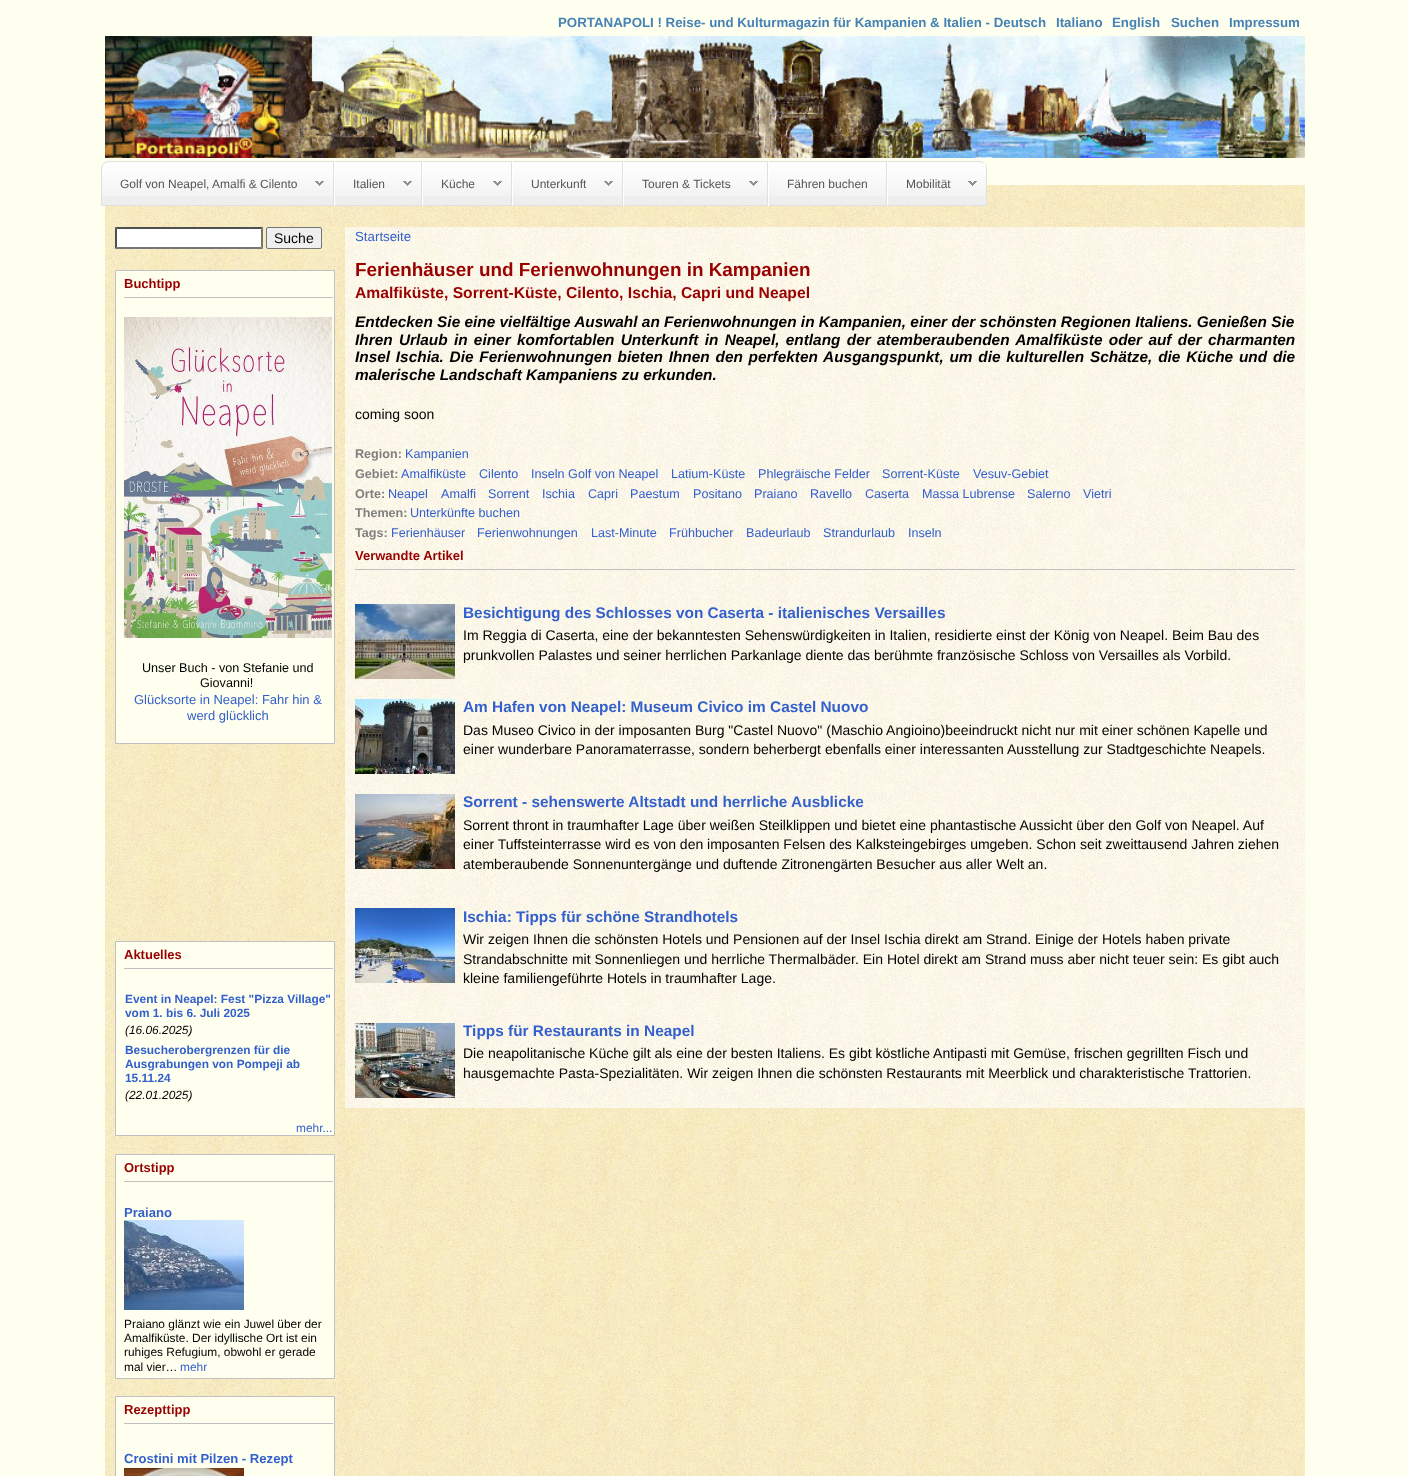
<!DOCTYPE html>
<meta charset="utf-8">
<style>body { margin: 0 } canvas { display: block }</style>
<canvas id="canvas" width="1409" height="1476"></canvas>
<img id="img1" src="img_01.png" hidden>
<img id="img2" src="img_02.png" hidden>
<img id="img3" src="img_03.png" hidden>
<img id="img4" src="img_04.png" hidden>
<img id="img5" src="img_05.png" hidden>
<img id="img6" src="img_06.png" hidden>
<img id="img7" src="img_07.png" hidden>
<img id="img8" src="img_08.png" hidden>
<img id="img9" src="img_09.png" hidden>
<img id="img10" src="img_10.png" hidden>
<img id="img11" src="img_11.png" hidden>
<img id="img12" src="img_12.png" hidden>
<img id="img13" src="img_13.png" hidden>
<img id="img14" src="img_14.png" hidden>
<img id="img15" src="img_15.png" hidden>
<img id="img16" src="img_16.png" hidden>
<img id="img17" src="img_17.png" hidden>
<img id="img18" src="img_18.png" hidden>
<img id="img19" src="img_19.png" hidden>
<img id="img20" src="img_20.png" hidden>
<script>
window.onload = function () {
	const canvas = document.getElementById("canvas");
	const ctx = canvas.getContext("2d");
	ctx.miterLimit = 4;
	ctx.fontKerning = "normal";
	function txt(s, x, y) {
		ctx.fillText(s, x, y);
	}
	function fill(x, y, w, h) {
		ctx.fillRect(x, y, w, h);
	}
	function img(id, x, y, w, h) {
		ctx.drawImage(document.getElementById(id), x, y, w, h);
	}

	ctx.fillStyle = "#FFFFF0";
	fill(0, 0, 1409, 1476);
	img("img1", 105, 185, 1200, 1291);
	img("img2", 105, 36, 1200, 122);
	ctx.fillStyle = "#EEEEEE";
	ctx.beginPath();
	ctx.roundRect(101, 161, 233, 45, [8, 0, 0, 0]);
	ctx.fill();
	img("img3", 101, 162, 232, 34);
	ctx.beginPath();
	ctx.roundRect(101.5, 161.5, 232, 44, [7.5, 0, 0, 0]);
	ctx.strokeStyle = "#E0E0E0";
	ctx.stroke();
	img("img4", 315, 181, 9, 5);
	fill(335, 196, 86, 9);
	img("img5", 335, 162, 86, 34);
	ctx.fillStyle = "#E0E0E0";
	fill(334, 161, 553, 1);
	fill(421, 161, 1, 45);
	fill(334, 205, 88, 1);
	ctx.fillStyle = "#FFFFFF";
	fill(334, 161, 1, 45);
	img("img4", 403, 181, 9, 5);
	ctx.fillStyle = "#EEEEEE";
	fill(423, 196, 88, 9);
	img("img6", 423, 162, 88, 34);
	ctx.fillStyle = "#E0E0E0";
	fill(511, 161, 1, 45);
	fill(422, 205, 90, 1);
	ctx.fillStyle = "#FFFFFF";
	fill(422, 161, 1, 45);
	img("img4", 493, 181, 9, 5);
	ctx.fillStyle = "#EEEEEE";
	fill(513, 196, 109, 9);
	img("img7", 513, 162, 109, 34);
	ctx.fillStyle = "#E0E0E0";
	fill(622, 161, 1, 45);
	fill(512, 205, 111, 1);
	ctx.fillStyle = "#FFFFFF";
	fill(512, 161, 1, 45);
	img("img4", 604, 181, 9, 5);
	ctx.fillStyle = "#EEEEEE";
	fill(624, 196, 143, 9);
	img("img8", 624, 162, 143, 34);
	ctx.fillStyle = "#E0E0E0";
	fill(767, 161, 1, 45);
	fill(623, 205, 145, 1);
	ctx.fillStyle = "#FFFFFF";
	fill(623, 161, 1, 45);
	img("img4", 749, 181, 9, 5);
	ctx.fillStyle = "#EEEEEE";
	fill(769, 196, 117, 9);
	img("img9", 769, 162, 117, 34);
	ctx.fillStyle = "#E0E0E0";
	fill(886, 161, 1, 45);
	fill(768, 205, 119, 1);
	ctx.fillStyle = "#FFFFFF";
	fill(768, 161, 1, 45);
	ctx.fillStyle = "#EEEEEE";
	ctx.beginPath();
	ctx.roundRect(887, 161, 100, 45, [0, 8, 0, 0]);
	ctx.fill();
	img("img10", 888, 162, 99, 34);
	ctx.fillStyle = "#E0E0E0";
	ctx.beginPath();
	ctx.moveTo(887, 161);
	ctx.lineTo(888, 162);
	ctx.lineTo(980, 162);
	ctx.lineTo(984, 164);
	ctx.bezierCurveTo(983, 162, 981, 161, 979, 161);
	ctx.closePath();
	ctx.fill();
	ctx.beginPath();
	ctx.moveTo(987, 206);
	ctx.lineTo(987, 169);
	ctx.bezierCurveTo(987, 167, 986, 165, 984, 164);
	ctx.bezierCurveTo(985, 165, 986, 167, 986, 169);
	ctx.lineTo(986, 205);
	ctx.closePath();
	ctx.fill();
	ctx.beginPath();
	ctx.moveTo(987, 206);
	ctx.lineTo(986, 205);
	ctx.lineTo(888, 205);
	ctx.lineTo(887, 206);
	ctx.closePath();
	ctx.fill();
	ctx.fillStyle = "#FFFFFF";
	ctx.beginPath();
	ctx.moveTo(887, 161);
	ctx.lineTo(887, 206);
	ctx.lineTo(888, 205);
	ctx.lineTo(888, 162);
	ctx.closePath();
	ctx.fill();
	img("img4", 968, 181, 9, 5);
	img("img11", 105, 227, 240, 1249);
	fill(115, 227, 148, 22);
	ctx.fillStyle = "#4F4F4F";
	ctx.beginPath();
	ctx.moveTo(115, 227);
	ctx.lineTo(263, 227);
	ctx.lineTo(261, 229);
	ctx.lineTo(117, 229);
	ctx.closePath();
	ctx.fill();
	ctx.fillStyle = "#767676";
	ctx.beginPath();
	ctx.moveTo(263, 227);
	ctx.lineTo(263, 249);
	ctx.lineTo(261, 247);
	ctx.lineTo(261, 229);
	ctx.closePath();
	ctx.fill();
	ctx.beginPath();
	ctx.moveTo(263, 249);
	ctx.lineTo(115, 249);
	ctx.lineTo(117, 247);
	ctx.lineTo(261, 247);
	ctx.closePath();
	ctx.fill();
	ctx.fillStyle = "#4F4F4F";
	ctx.beginPath();
	ctx.moveTo(115, 249);
	ctx.lineTo(115, 227);
	ctx.lineTo(117, 229);
	ctx.lineTo(117, 247);
	ctx.closePath();
	ctx.fill();
	ctx.fillStyle = "#EFEFEF";
	ctx.beginPath();
	ctx.roundRect(266.5, 227.5, 55, 21, 1.5);
	ctx.fill();
	ctx.strokeStyle = "#767676";
	ctx.stroke();
	ctx.fillStyle = "#FFFFF0";
	ctx.beginPath();
	ctx.rect(115.5, 270.5, 219, 473);
	ctx.fill();
	ctx.strokeStyle = "#C0C0C0";
	ctx.stroke();
	ctx.fillStyle = "#C0C0C0";
	fill(124, 297, 209, 1);
	img("img12", 124, 317, 208, 321);
	ctx.fillStyle = "#FFFFF0";
	ctx.beginPath();
	ctx.rect(115.5, 941.5, 219, 194);
	ctx.fill();
	ctx.stroke();
	ctx.fillStyle = "#C0C0C0";
	fill(124, 968, 209, 1);
	ctx.fillStyle = "#FFFFF0";
	ctx.beginPath();
	ctx.rect(115.5, 1154.5, 219, 224);
	ctx.fill();
	ctx.stroke();
	ctx.fillStyle = "#C0C0C0";
	fill(124, 1181, 209, 1);
	img("img13", 124, 1220, 120, 90);
	ctx.fillStyle = "#FFFFF0";
	ctx.beginPath();
	ctx.rect(115.5, 1396.5, 219, 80);
	ctx.fill();
	ctx.stroke();
	ctx.fillStyle = "#C0C0C0";
	fill(124, 1423, 209, 1);
	img("img14", 124, 1468, 120, 8);
	img("img15", 345, 227, 960, 881);
	fill(355, 569, 940, 1);
	img("img16", 355, 604, 100, 75);
	img("img17", 355, 699, 100, 75);
	img("img18", 355, 794, 100, 75);
	img("img19", 355, 908, 100, 75);
	img("img20", 355, 1023, 100, 75);
	ctx.font = "bold 13.3px Liberation Sans";
	ctx.fillStyle = "#4682B4";
	txt("PORTANAPOLI ! Reise- und Kulturmagazin für Kampanien & Italien - Deutsch", 558, 27);
	txt("Italiano", 1056, 27);
	txt("English", 1112, 27);
	txt("Suchen", 1171, 27);
	txt("Impressum", 1229, 27);
	ctx.font = "12px Liberation Sans";
	ctx.fillStyle = "#555555";
	txt("Golf von Neapel, Amalfi & Cilento", 120, 188);
	txt("Italien", 353, 188);
	txt("Küche", 441, 188);
	txt("Unterkunft", 531, 188);
	txt("Touren & Tickets", 642, 188);
	txt("Fähren buchen", 787, 188);
	txt("Mobilität", 906, 188);
	ctx.font = "14px Liberation Sans";
	ctx.fillStyle = "#000000";
	txt("Suche", 274, 243);
	ctx.font = "bold 13px Liberation Sans";
	ctx.fillStyle = "#990000";
	txt("Buchtipp", 124, 288);
	ctx.font = "12.6px Liberation Sans";
	ctx.fillStyle = "#000000";
	txt("Unser Buch - von Stefanie und", 142, 672);
	txt("Giovanni!", 200, 687);
	ctx.font = "13px Liberation Sans";
	ctx.fillStyle = "#3360CC";
	txt("Glücksorte in Neapel: Fahr hin &", 134, 704);
	txt("werd glücklich", 187, 720);
	ctx.font = "bold 13px Liberation Sans";
	ctx.fillStyle = "#990000";
	txt("Aktuelles", 124, 959);
	ctx.font = "bold 11.9px Liberation Sans";
	ctx.fillStyle = "#3360CC";
	txt("Event in Neapel: Fest \"Pizza Village\"", 125, 1003);
	txt("vom 1. bis 6. Juli 2025", 125, 1017);
	ctx.font = "italic 11.9px Liberation Sans";
	ctx.fillStyle = "#000000";
	txt("(16.06.2025)", 125, 1034);
	ctx.font = "bold 11.9px Liberation Sans";
	ctx.fillStyle = "#3360CC";
	txt("Besucherobergrenzen für die", 125, 1054);
	txt("Ausgrabungen von Pompeji ab", 125, 1068);
	txt("15.11.24", 125, 1082);
	ctx.font = "italic 11.9px Liberation Sans";
	ctx.fillStyle = "#000000";
	txt("(22.01.2025)", 125, 1099);
	ctx.font = "11.9px Liberation Sans";
	ctx.fillStyle = "#3360CC";
	txt("mehr...", 296, 1132);
	ctx.font = "bold 13px Liberation Sans";
	ctx.fillStyle = "#990000";
	txt("Ortstipp", 124, 1172);
	ctx.font = "bold 13.1px Liberation Sans";
	ctx.fillStyle = "#3360CC";
	txt("Praiano", 124, 1217);
	ctx.font = "11.9px Liberation Sans";
	ctx.fillStyle = "#000000";
	txt("Praiano glänzt wie ein Juwel über der", 124, 1328);
	txt("Amalfiküste. Der idyllische Ort ist ein", 124, 1342);
	txt("ruhiges Refugium, obwohl er gerade", 124, 1356);
	txt("mal vier…", 124, 1371);
	ctx.fillStyle = "#3360CC";
	txt("mehr", 180, 1371);
	ctx.font = "bold 13px Liberation Sans";
	ctx.fillStyle = "#990000";
	txt("Rezepttipp", 124, 1414);
	ctx.font = "bold 13.1px Liberation Sans";
	ctx.fillStyle = "#3360CC";
	txt("Crostini mit Pilzen - Rezept", 124, 1463);
	ctx.font = "13.3px Liberation Sans";
	txt("Startseite", 355, 241);
	ctx.font = "bold 18.9px Liberation Sans";
	ctx.fillStyle = "#990000";
	txt("Ferienhäuser und Ferienwohnungen in Kampanien", 355, 276);
	ctx.font = "bold 15.7px Liberation Sans";
	txt("Amalfiküste, Sorrent-Küste, Cilento, Ischia, Capri und Neapel", 355, 298);
	ctx.font = "italic bold 15.4px Liberation Sans";
	ctx.fillStyle = "#000000";
	txt("Entdecken Sie eine vielfältige Auswahl an Ferienwohnungen in Kampanien, einer der schönsten Regionen Italiens. Genießen Sie", 355, 327);
	ctx.wordSpacing = "2px";
	txt("Ihren Urlaub in einer komfortablen Unterkunft in Neapel, entlang der atemberaubenden Amalfiküste oder auf der charmanten", 355, 345);
	ctx.wordSpacing = "1.5px";
	txt("Insel Ischia. Die Ferienwohnungen bieten Ihnen den perfekten Ausgangspunkt, um die kulturellen Schätze, die Küche und die", 355, 362);
	ctx.wordSpacing = "0px";
	txt("malerische Landschaft Kampaniens zu erkunden.", 355, 380);
	ctx.font = "14px Liberation Sans";
	txt("coming soon", 355, 419);
	ctx.font = "bold 12.6px Liberation Sans";
	ctx.fillStyle = "#808080";
	txt("Region:", 355, 458);
	ctx.font = "12.6px Liberation Sans";
	ctx.fillStyle = "#3360CC";
	txt("Kampanien", 405, 458);
	ctx.font = "bold 12.6px Liberation Sans";
	ctx.fillStyle = "#808080";
	txt("Gebiet:", 355, 478);
	ctx.font = "12.6px Liberation Sans";
	ctx.fillStyle = "#3360CC";
	txt("Amalfiküste", 401, 478);
	txt("Cilento", 479, 478);
	txt("Inseln Golf von Neapel", 531, 478);
	txt("Latium-Küste", 671, 478);
	txt("Phlegräische Felder", 758, 478);
	txt("Sorrent-Küste", 882, 478);
	txt("Vesuv-Gebiet", 973, 478);
	ctx.font = "bold 12.6px Liberation Sans";
	ctx.fillStyle = "#808080";
	txt("Orte:", 355, 498);
	ctx.font = "12.6px Liberation Sans";
	ctx.fillStyle = "#3360CC";
	txt("Neapel", 388, 498);
	txt("Amalfi", 441, 498);
	txt("Sorrent", 488, 498);
	txt("Ischia", 542, 498);
	txt("Capri", 588, 498);
	txt("Paestum", 630, 498);
	txt("Positano", 693, 498);
	txt("Praiano", 754, 498);
	txt("Ravello", 810, 498);
	txt("Caserta", 865, 498);
	txt("Massa Lubrense", 922, 498);
	txt("Salerno", 1027, 498);
	txt("Vietri", 1083, 498);
	ctx.font = "bold 12.6px Liberation Sans";
	ctx.fillStyle = "#808080";
	txt("Themen:", 355, 517);
	ctx.font = "12.6px Liberation Sans";
	ctx.fillStyle = "#3360CC";
	txt("Unterkünfte buchen", 410, 517);
	ctx.font = "bold 12.6px Liberation Sans";
	ctx.fillStyle = "#808080";
	txt("Tags:", 355, 537);
	ctx.font = "12.6px Liberation Sans";
	ctx.fillStyle = "#3360CC";
	txt("Ferienhäuser", 391, 537);
	txt("Ferienwohnungen", 477, 537);
	txt("Last-Minute", 591, 537);
	txt("Frühbucher", 669, 537);
	txt("Badeurlaub", 746, 537);
	txt("Strandurlaub", 823, 537);
	txt("Inseln", 908, 537);
	ctx.font = "bold 13px Liberation Sans";
	ctx.fillStyle = "#990000";
	txt("Verwandte Artikel", 355, 560);
	ctx.font = "bold 15.4px Liberation Sans";
	ctx.fillStyle = "#3360CC";
	txt("Besichtigung des Schlosses von Caserta - italienisches Versailles", 463, 618);
	ctx.font = "14px Liberation Sans";
	ctx.fillStyle = "#000000";
	txt("Im Reggia di Caserta, eine der bekanntesten Sehenswürdigkeiten in Italien, residierte einst der König von Neapel. Beim Bau des", 463, 640);
	txt("prunkvollen Palastes und seiner herrlichen Parkanlage diente das berühmte französische Schloss von Versailles als Vorbild.", 463, 660);
	ctx.font = "bold 15.4px Liberation Sans";
	ctx.fillStyle = "#3360CC";
	txt("Am Hafen von Neapel: Museum Civico im Castel Nuovo", 463, 712);
	ctx.font = "14px Liberation Sans";
	ctx.fillStyle = "#000000";
	txt("Das Museo Civico in der imposanten Burg \"Castel Nuovo\" (Maschio Angioino)beeindruckt nicht nur mit einer schönen Kapelle und", 463, 735);
	txt("einer wunderbare Panoramaterrasse, sondern beherbergt ebenfalls einer interessanten Ausstellung zur Stadtgeschichte Neapels.", 463, 754);
	ctx.font = "bold 15.4px Liberation Sans";
	ctx.fillStyle = "#3360CC";
	txt("Sorrent - sehenswerte Altstadt und herrliche Ausblicke", 463, 807);
	ctx.font = "14px Liberation Sans";
	ctx.fillStyle = "#000000";
	txt("Sorrent thront in traumhafter Lage über weißen Steilklippen und bietet eine phantastische Aussicht über den Golf von Neapel. Auf", 463, 830);
	txt("einer Tuffsteinterrasse wird es von den imposanten Felsen des Kalksteingebirges umgeben. Schon seit zweittausend Jahren ziehen", 463, 849);
	txt("atemberaubende Sonnenuntergänge und duftende Zitronengärten Besucher aus aller Welt an.", 463, 869);
	ctx.font = "bold 15.4px Liberation Sans";
	ctx.fillStyle = "#3360CC";
	txt("Ischia: Tipps für schöne Strandhotels", 463, 922);
	ctx.font = "14px Liberation Sans";
	ctx.fillStyle = "#000000";
	txt("Wir zeigen Ihnen die schönsten Hotels und Pensionen auf der Insel Ischia direkt am Strand. Einige der Hotels haben private", 463, 944);
	txt("Strandabschnitte mit Sonnenliegen und herrliche Thermalbäder. Ein Hotel direkt am Strand muss aber nicht teuer sein: Es gibt auch", 463, 964);
	txt("kleine familiengeführte Hotels in traumhafter Lage.", 463, 983);
	ctx.font = "bold 15.4px Liberation Sans";
	ctx.fillStyle = "#3360CC";
	txt("Tipps für Restaurants in Neapel", 463, 1036);
	ctx.font = "14px Liberation Sans";
	ctx.fillStyle = "#000000";
	txt("Die neapolitanische Küche gilt als eine der besten Italiens. Es gibt köstliche Antipasti mit Gemüse, frischen gegrillten Fisch und", 463, 1058);
	txt("hausgemachte Pasta-Spezialitäten. Wir zeigen Ihnen die schönsten Restaurants mit Meerblick und charakteristische Trattorien.", 463, 1078);
};
</script>
